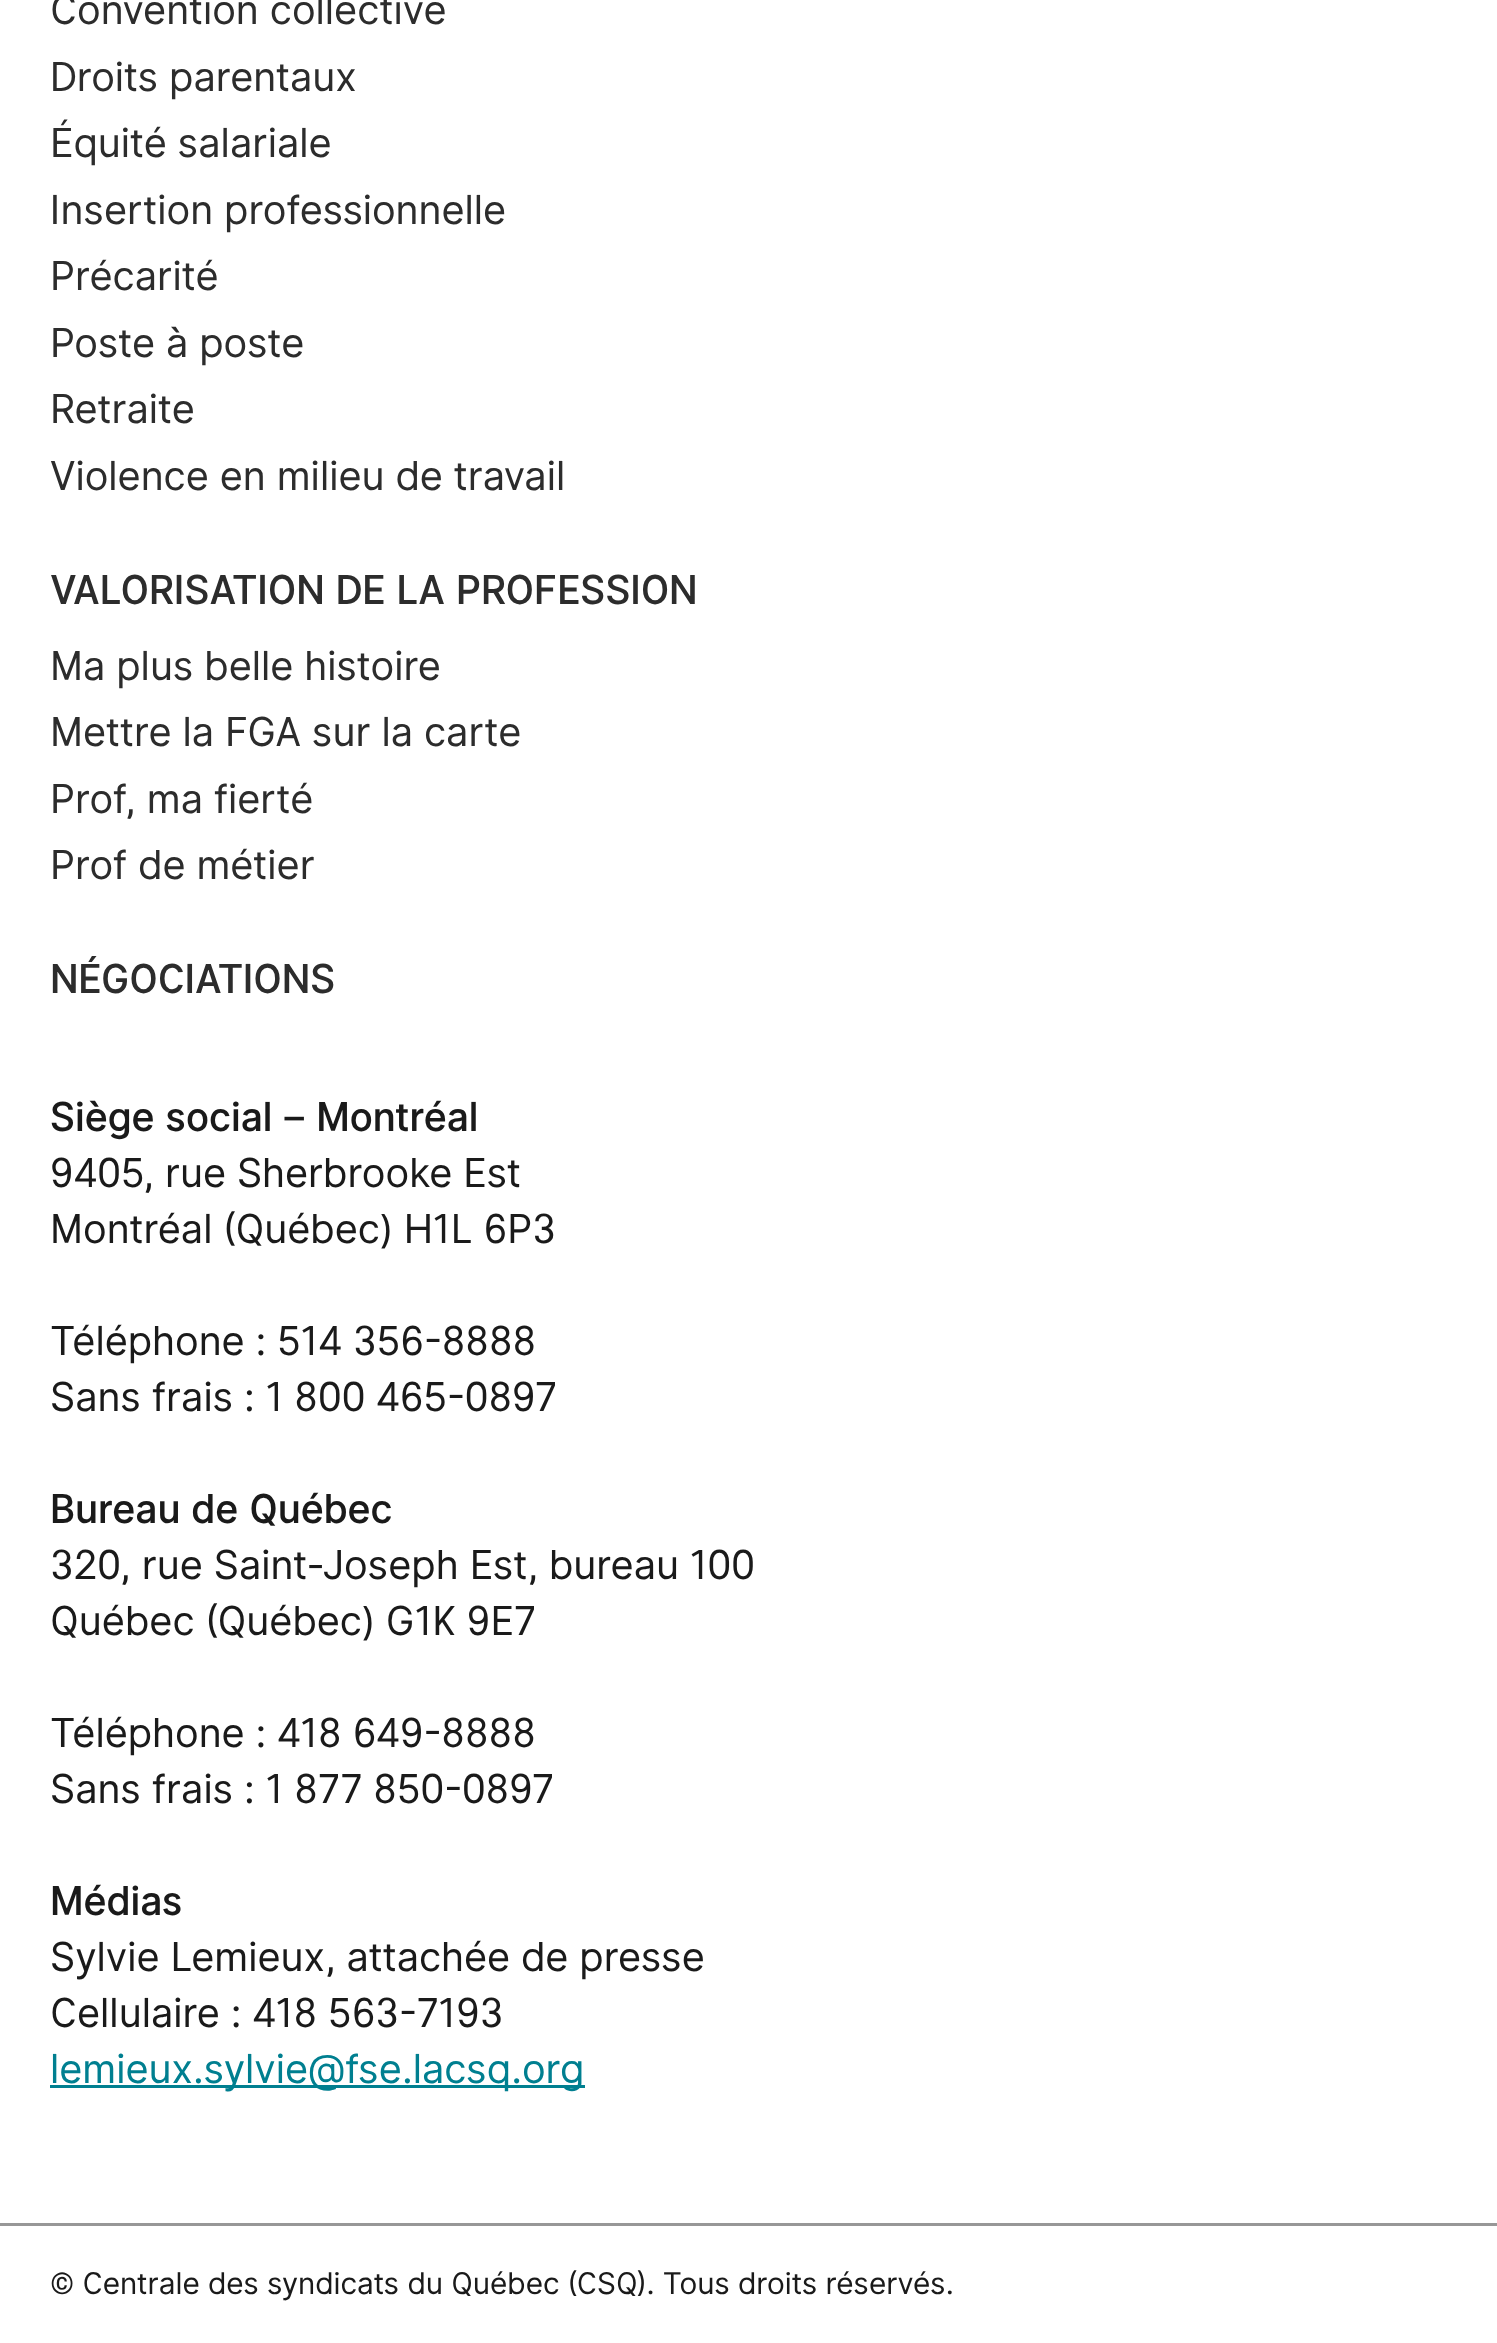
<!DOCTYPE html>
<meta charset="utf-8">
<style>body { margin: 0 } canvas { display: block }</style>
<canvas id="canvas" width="1497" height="2343"></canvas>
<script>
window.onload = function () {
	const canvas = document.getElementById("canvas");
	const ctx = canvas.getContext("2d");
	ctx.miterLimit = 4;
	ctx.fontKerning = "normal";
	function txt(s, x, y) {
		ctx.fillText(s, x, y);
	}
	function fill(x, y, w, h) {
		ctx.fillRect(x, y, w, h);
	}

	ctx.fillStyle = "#FFFFFF";
	fill(0, 0, 1497, 2343);
	ctx.fillStyle = "#007F90";
	fill(50, 2085, 535, 3);
	ctx.fillStyle = "#979797";
	fill(0, 2223, 1497, 3);
	ctx.font = "40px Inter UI";
	ctx.fillStyle = "#2C2C2C";
	txt("Convention collective", 50, 24);
	txt("Droits parentaux", 50, 91);
	txt("Équité salariale", 50, 157);
	txt("Insertion professionnelle", 50, 224);
	txt("Précarité", 50, 290);
	txt("Poste à poste", 50, 357);
	txt("Retraite", 50, 423);
	txt("Violence en milieu de travail", 50, 490);
	ctx.font = "500 40px Inter UI";
	txt("VALORISATION DE LA PROFESSION", 50, 604);
	ctx.font = "40px Inter UI";
	txt("Ma plus belle histoire", 50, 680);
	txt("Mettre la FGA sur la carte", 50, 746);
	txt("Prof, ma fierté", 50, 813);
	txt("Prof de métier", 50, 879);
	ctx.font = "500 40px Inter UI";
	txt("NÉGOCIATIONS", 50, 993);
	ctx.fillStyle = "#1A1A1A";
	txt("Siège social – Montréal", 50, 1131);
	ctx.font = "40px Inter UI";
	txt("9405, rue Sherbrooke Est", 50, 1187);
	txt("Montréal (Québec) H1L 6P3", 50, 1243);
	txt("Téléphone : 514 356-8888", 50, 1355);
	txt("Sans frais : 1 800 465-0897", 50, 1411);
	ctx.font = "500 40px Inter UI";
	txt("Bureau de Québec", 50, 1523);
	ctx.font = "40px Inter UI";
	txt("320, rue Saint-Joseph Est, bureau 100", 50, 1579);
	txt("Québec (Québec) G1K 9E7", 50, 1635);
	txt("Téléphone : 418 649-8888", 50, 1747);
	txt("Sans frais : 1 877 850-0897", 50, 1803);
	ctx.font = "500 40px Inter UI";
	txt("Médias", 50, 1915);
	ctx.font = "40px Inter UI";
	txt("Sylvie Lemieux, attachée de presse", 50, 1971);
	txt("Cellulaire : 418 563-7193", 50, 2027);
	ctx.fillStyle = "#007F90";
	txt("lemieux.sylvie@fse.lacsq.org", 50, 2083);
	ctx.font = "30px Inter UI";
	ctx.fillStyle = "#1A1A1A";
	txt("© Centrale des syndicats du Québec (CSQ). Tous droits réservés.", 50, 2294);
};
</script>
